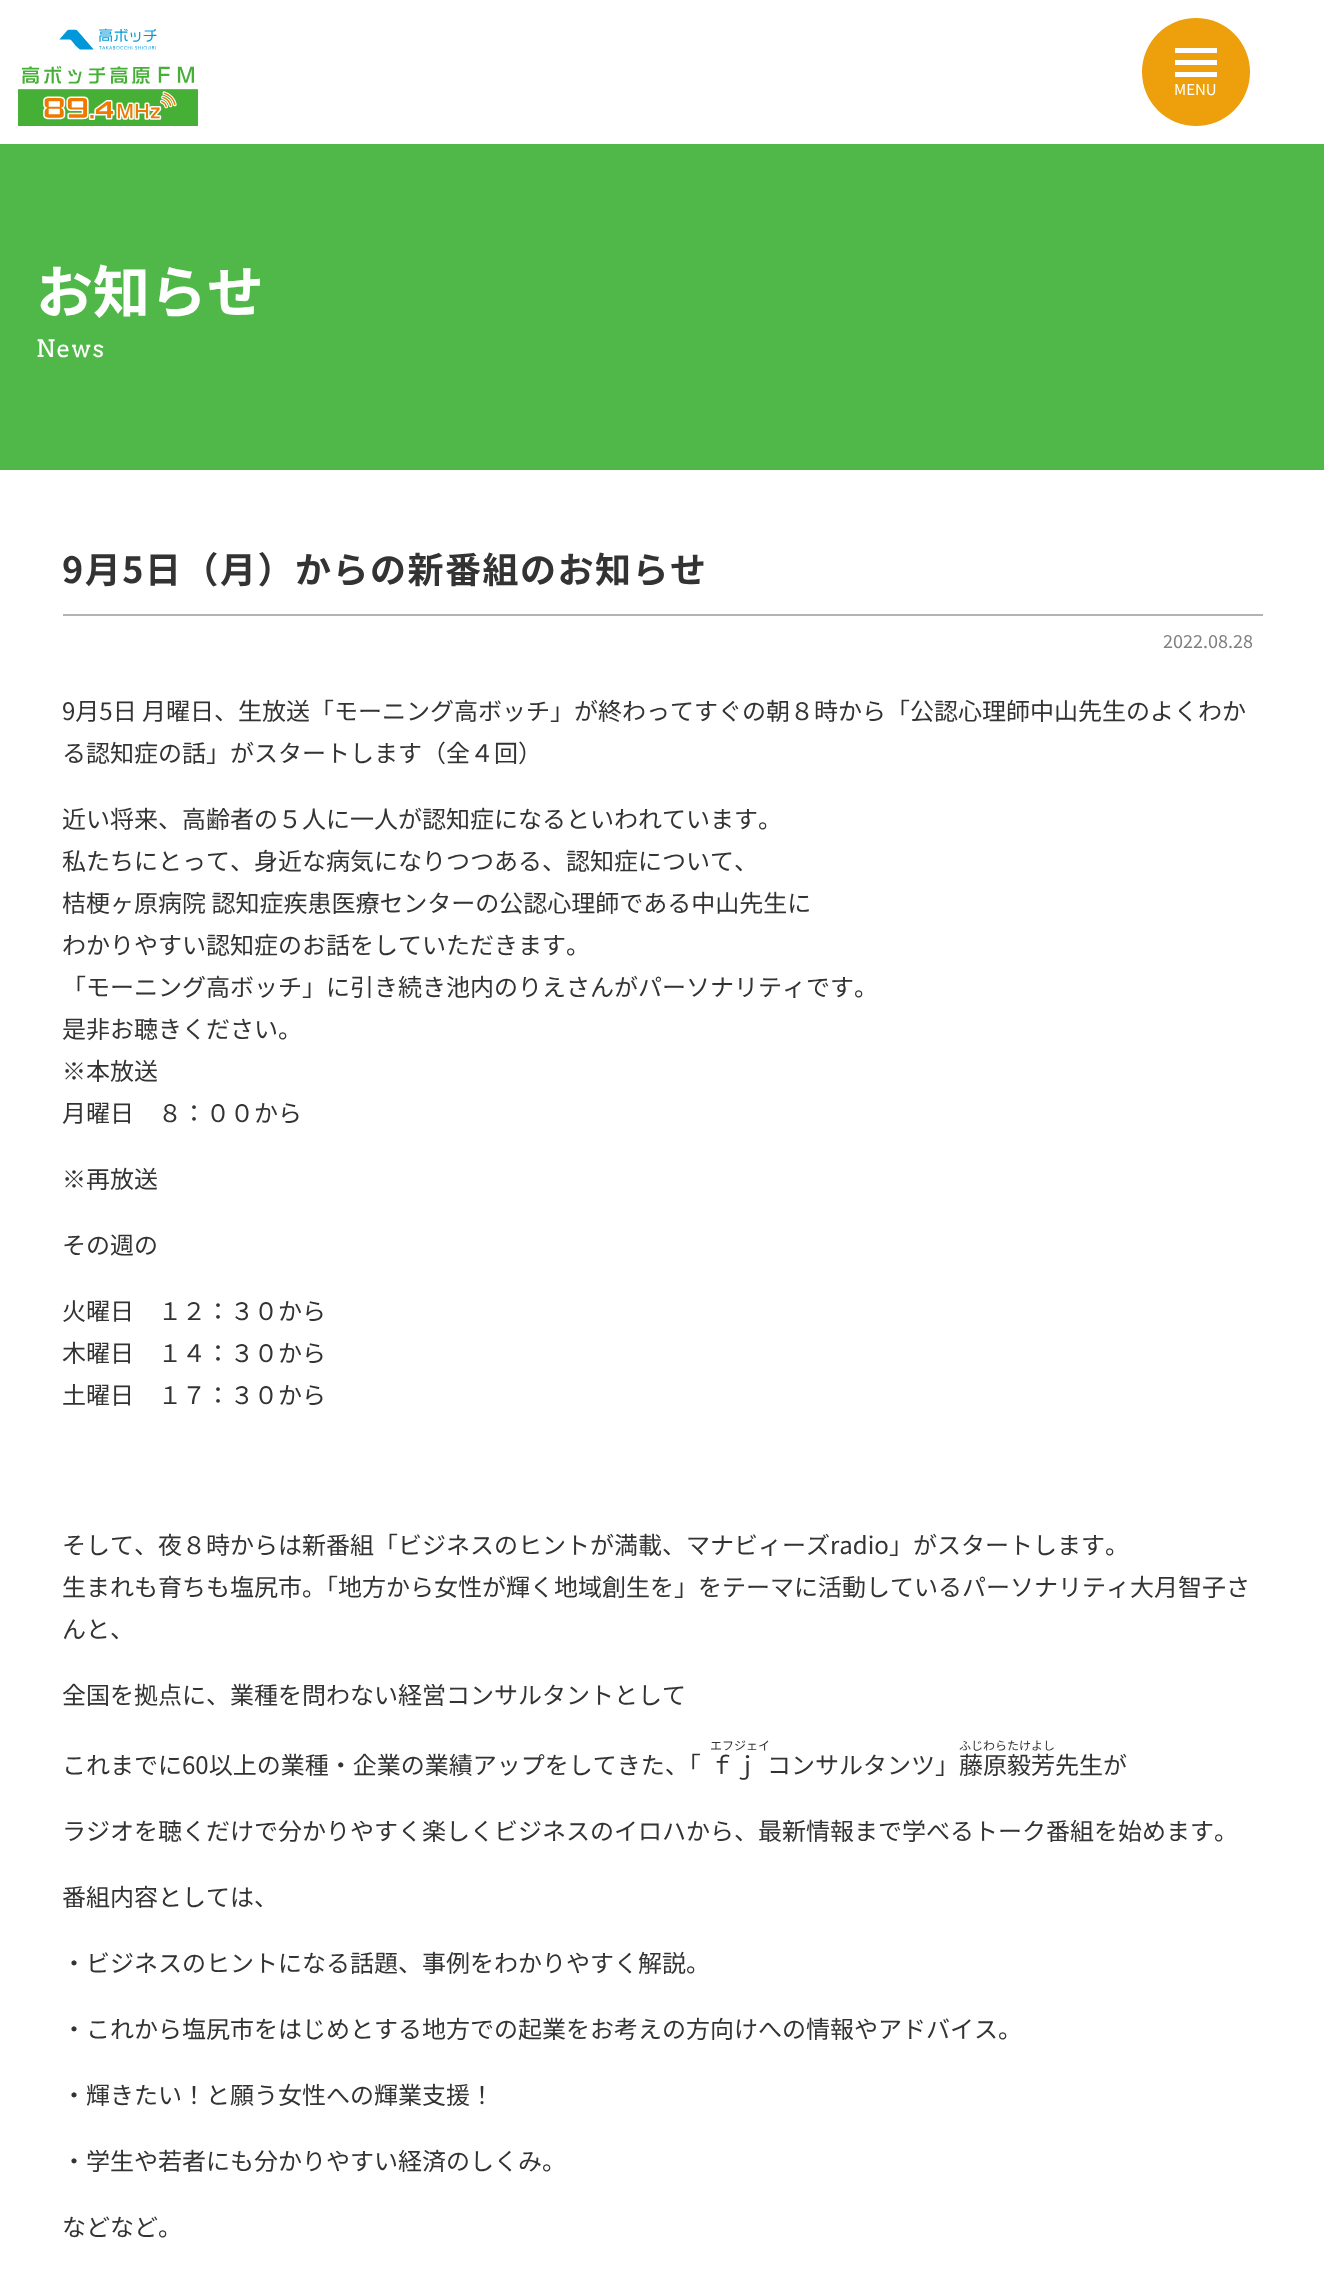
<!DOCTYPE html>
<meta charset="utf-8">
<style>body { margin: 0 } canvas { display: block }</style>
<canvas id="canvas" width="1324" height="2283"></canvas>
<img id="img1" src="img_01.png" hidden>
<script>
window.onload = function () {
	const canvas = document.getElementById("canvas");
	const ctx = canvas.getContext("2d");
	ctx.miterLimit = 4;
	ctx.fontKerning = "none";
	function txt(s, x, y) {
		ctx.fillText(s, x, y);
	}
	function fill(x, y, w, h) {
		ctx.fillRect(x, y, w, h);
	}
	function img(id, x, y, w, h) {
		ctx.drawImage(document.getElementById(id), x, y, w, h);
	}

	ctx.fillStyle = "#FFFFFF";
	fill(0, 0, 1324, 2283);
	img("img1", 18, 28, 180, 98);
	ctx.fillStyle = "#ED9F0C";
	ctx.beginPath();
	ctx.arc(1196, 72, 54, 0, Math.PI * 2);
	ctx.fill();
	ctx.fillStyle = "#FFFFFF";
	fill(1175, 48, 42, 5);
	fill(1175, 60, 42, 5);
	fill(1175, 72, 42, 5);
	ctx.fillStyle = "#50B848";
	fill(0, 144, 1324, 326);
	ctx.fillStyle = "#B3B3B3";
	fill(63, 614, 1200, 2);
	ctx.font = "15px Noto Sans JP";
	ctx.fillStyle = "#FFFFFF";
	txt("MENU", 1174, 95);
	ctx.font = "bold 57px Noto Sans JP";
	txt("お知らせ", 36, 313);
	ctx.letterSpacing = "1.5px";
	ctx.font = "24px Arvo";
	txt("News", 36, 357);
	ctx.font = "bold 36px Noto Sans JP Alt";
	ctx.fillStyle = "#333333";
	txt("9月5日（月）からの新番組のお知らせ", 62, 583);
	ctx.letterSpacing = "0px";
	ctx.font = "18px Noto Sans JP";
	ctx.fillStyle = "#808080";
	txt("2022.08.28", 1163, 648);
	ctx.font = "24px Noto Sans JP";
	ctx.fillStyle = "#333333";
	txt("9月5日 月曜日、生放送「モーニング高ボッチ」が終わってすぐの朝８時から「公認心理師中山先生のよくわか", 62, 720);
	txt("る認知症の話」がスタートします（全４回）", 62, 762);
	txt("近い将来、高齢者の５人に一人が認知症になるといわれています", 62, 828);
	txt("。", 758, 828);
	txt("私たちにとって、身近な病気になりつつある、認知症について", 62, 870);
	txt("、", 734, 870);
	txt("桔梗ヶ原病院 認知症疾患医療センターの公認心理師である中山先生に", 62, 912);
	txt("わかりやすい認知症のお話をしていただきます。", 62, 954);
	txt("「モーニング高ボッチ」に引き続き池内のりえさんがパーソナリティです。", 62, 996);
	txt("是非お聴きください。", 62, 1038);
	txt("※本放送", 62, 1080);
	txt("月曜日　８：００から", 62, 1122);
	txt("※再放送", 62, 1188);
	txt("その週の", 62, 1254);
	txt("火曜日　１２：３０から", 62, 1320);
	txt("木曜日　１４：３０から", 62, 1362);
	txt("土曜日　１７：３０から", 62, 1404);
	txt("そして、夜８時からは新番組「ビジネスのヒントが満載、マナビィーズradio", 62, 1554);
	txt("」がスタートします。", 889, 1554);
	txt("生まれも育ちも塩尻市。「地方から女性が輝く地域創生を」をテーマに活動しているパーソナリティ大月智子さ", 62, 1596);
	txt("んと、", 62, 1638);
	txt("全国を拠点に、業種を問わない経営コンサルタントとして", 62, 1704);
	ctx.font = "12px Noto Sans JP";
	txt("エフジェイ", 710, 1750);
	ctx.font = "24px Noto Sans JP";
	txt("ｆｊ", 710, 1774);
	ctx.font = "12px Noto Sans JP";
	txt("ふじわらたけよし", 959, 1750);
	ctx.font = "24px Noto Sans JP";
	txt("これまでに60以上の業種・企業の業績アップをしてきた、「", 62, 1774);
	txt("コンサルタンツ」藤原毅芳先生が", 767, 1774);
	txt("ラジオを聴くだけで分かりやすく楽しくビジネスのイロハから、最新情報まで学べるトーク番組を始めます。", 62, 1840);
	txt("番組内容としては、", 62, 1906);
	txt("・ビジネスのヒントになる話題、事例をわかりやすく解説。", 62, 1972);
	txt("・これから塩尻市をはじめとする地方での起業をお考えの方向けへの情報やアドバイス。", 62, 2038);
	txt("・輝きたい！と願う女性への輝業支援！", 62, 2104);
	txt("・学生や若者にも分かりやすい経済のしくみ。", 62, 2170);
	txt("などなど。", 62, 2236);
};
</script>
